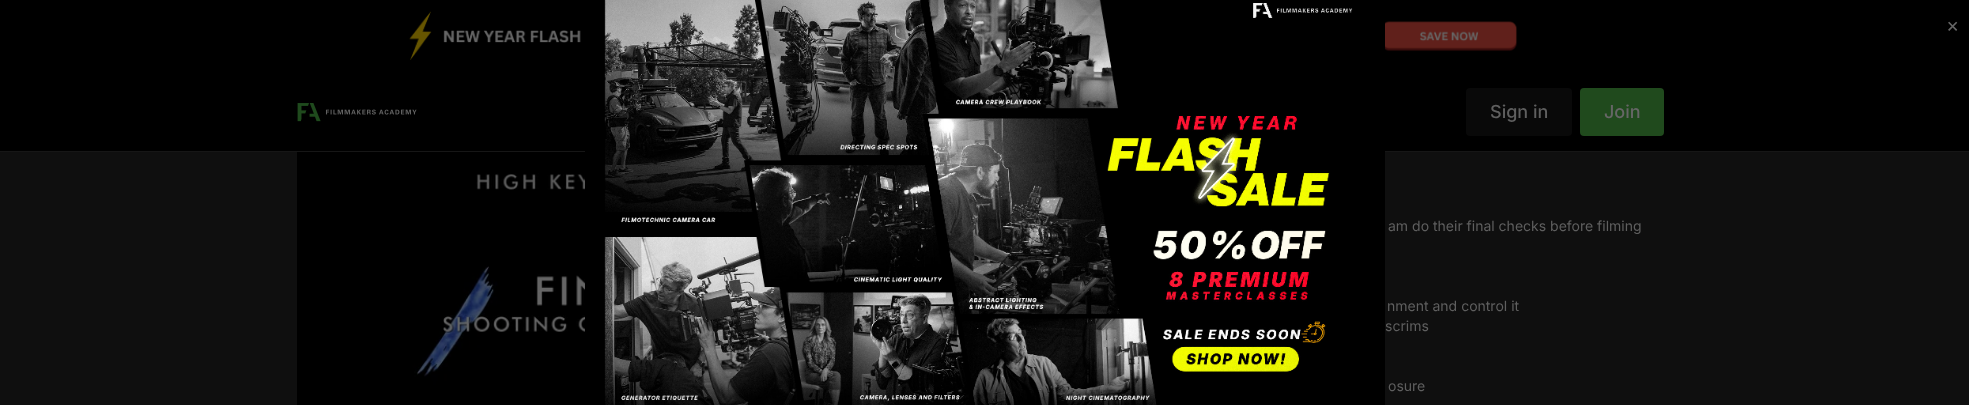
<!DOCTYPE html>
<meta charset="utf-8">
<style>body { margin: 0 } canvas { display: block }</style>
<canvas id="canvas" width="1969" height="405"></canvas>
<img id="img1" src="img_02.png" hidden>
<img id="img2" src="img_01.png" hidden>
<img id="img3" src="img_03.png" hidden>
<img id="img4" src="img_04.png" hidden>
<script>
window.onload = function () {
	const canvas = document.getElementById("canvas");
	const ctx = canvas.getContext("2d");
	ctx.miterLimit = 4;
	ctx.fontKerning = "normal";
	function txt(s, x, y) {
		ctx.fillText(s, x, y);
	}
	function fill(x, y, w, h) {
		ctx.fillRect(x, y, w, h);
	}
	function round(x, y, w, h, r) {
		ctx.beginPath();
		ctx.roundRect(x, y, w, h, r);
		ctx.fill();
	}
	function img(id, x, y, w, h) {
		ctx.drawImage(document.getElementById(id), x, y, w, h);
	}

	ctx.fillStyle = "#0F0F0F";
	fill(0, 0, 1969, 405);
	ctx.fillStyle = "#000000";
	fill(0, 0, 1969, 151);
	img("img1", 409, 11, 1109, 49);
	ctx.fillStyle = "#161616";
	fill(0, 151, 1969, 1);
	ctx.fillStyle = "#000000";
	fill(585, 22, 800, 383);
	img("img2", 604, 0, 749, 405);
	img("img3", 297, 103, 120, 19);
	ctx.fillStyle = "#090909";
	round(1466, 88, 106, 48, 4);
	ctx.fillStyle = "#204A1D";
	round(1580, 88, 84, 48, 4);
	img("img4", 297, 152, 288, 253);
	ctx.font = "20px Inter";
	ctx.fillStyle = "#666666";
	txt("×", 1946, 32);
	ctx.font = "500 18px Inter";
	ctx.fillStyle = "#5F5F5F";
	txt("Sign in", 1490, 118);
	ctx.fillStyle = "#666666";
	txt("Join", 1604, 118);
	ctx.font = "14px Inter";
	ctx.fillStyle = "#5F5F5F";
	txt("am do their final checks before filming", 1388, 231);
	txt("nment and control it", 1387, 311);
	txt("scrims", 1385, 331);
	txt("osure", 1388, 391);
};
</script>
